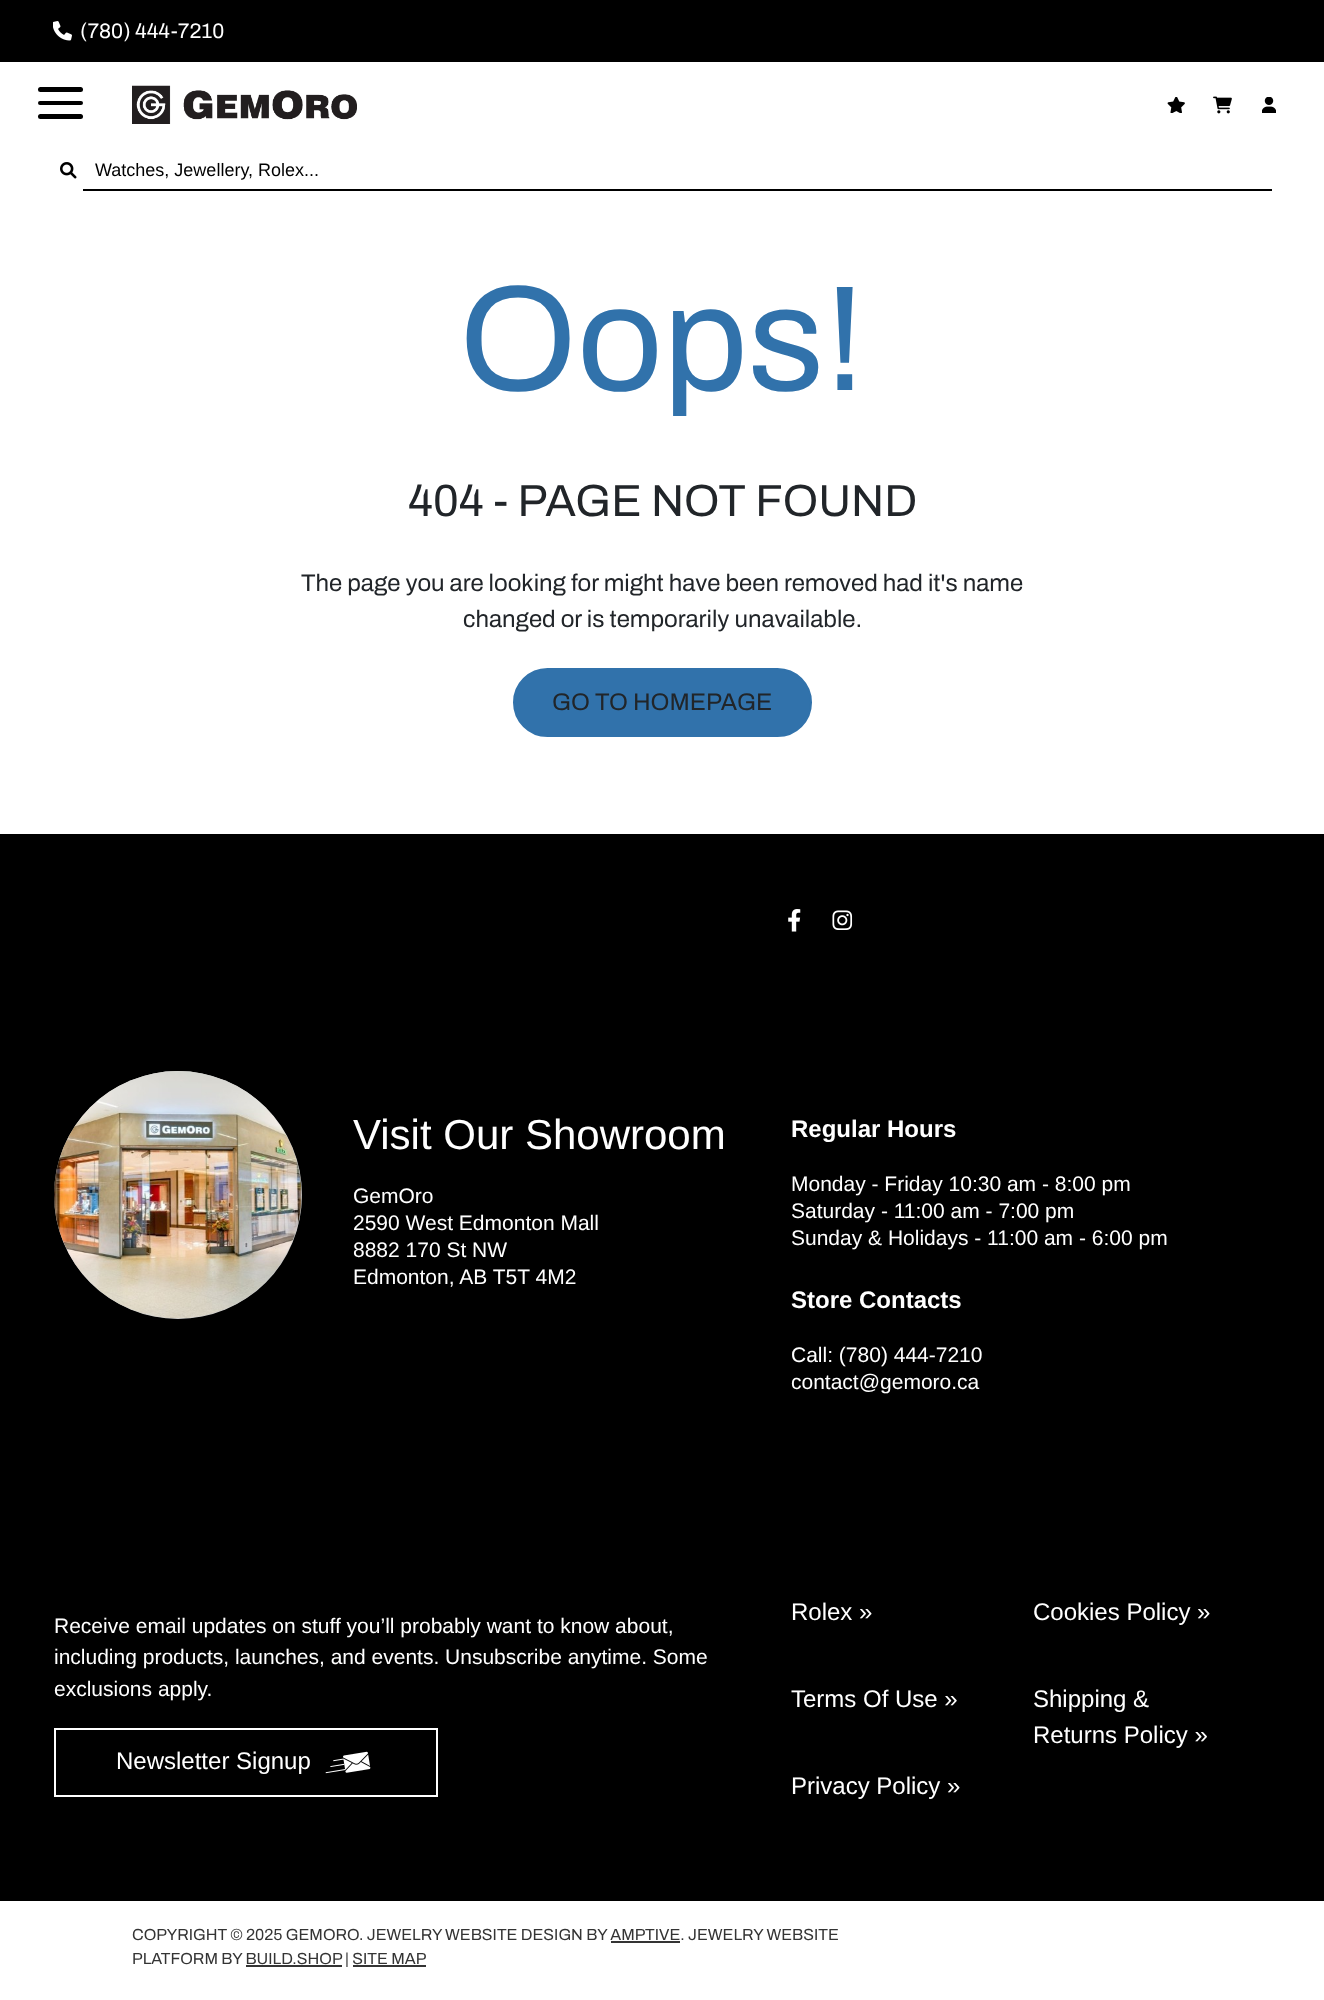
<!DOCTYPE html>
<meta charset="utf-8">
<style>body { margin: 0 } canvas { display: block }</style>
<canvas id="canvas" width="1324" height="2000"></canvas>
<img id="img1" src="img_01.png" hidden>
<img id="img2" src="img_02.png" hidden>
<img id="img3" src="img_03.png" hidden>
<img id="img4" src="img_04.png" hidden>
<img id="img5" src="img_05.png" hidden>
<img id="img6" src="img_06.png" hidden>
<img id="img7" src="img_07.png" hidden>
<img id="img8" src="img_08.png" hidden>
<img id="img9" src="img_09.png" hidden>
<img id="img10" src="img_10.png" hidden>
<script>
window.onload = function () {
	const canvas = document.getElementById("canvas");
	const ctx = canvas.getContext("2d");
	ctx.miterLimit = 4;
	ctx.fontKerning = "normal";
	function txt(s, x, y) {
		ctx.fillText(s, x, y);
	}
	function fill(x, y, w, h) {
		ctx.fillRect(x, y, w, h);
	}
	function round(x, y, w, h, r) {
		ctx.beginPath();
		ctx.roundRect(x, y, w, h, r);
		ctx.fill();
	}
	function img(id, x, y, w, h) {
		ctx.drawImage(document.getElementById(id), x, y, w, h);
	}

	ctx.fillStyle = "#FFFFFF";
	fill(0, 0, 1324, 2000);
	ctx.fillStyle = "#000000";
	fill(0, 0, 1324, 62);
	img("img1", 53, 21, 19, 20);
	round(38, 87, 45, 5, 2.5);
	round(38, 101, 45, 4, 2);
	round(38, 114, 45, 5, 2.5);
	img("img2", 132, 85, 225, 39);
	img("img3", 1167, 97, 18, 16);
	img("img4", 1213, 96, 19, 18);
	img("img5", 1262, 97, 14, 16);
	img("img6", 60, 162, 17, 17);
	fill(83, 189, 1189, 2);
	ctx.fillStyle = "#3172AB";
	ctx.beginPath();
	ctx.roundRect(514, 669, 297, 67, 33.5);
	ctx.fill();
	ctx.strokeStyle = "#3172AB";
	ctx.lineWidth = 2;
	ctx.stroke();
	ctx.fillStyle = "#000000";
	fill(0, 834, 1324, 1067);
	img("img7", 788, 909, 13, 23);
	img("img8", 832, 910, 21, 20);
	ctx.fillStyle = "#CCCCCC";
	ctx.beginPath();
	ctx.arc(178, 1195, 124, 0, Math.PI * 2);
	ctx.fill();
	img("img9", 54, 1071, 248, 248);
	ctx.strokeStyle = "#FFFFFF";
	ctx.strokeRect(55, 1729, 382, 67);
	img("img10", 325, 1751, 46, 23);
	ctx.fillStyle = "#343434";
	fill(611, 1941, 69, 2);
	fill(246, 1965, 96, 2);
	fill(353, 1965, 73, 2);
	ctx.font = "600 21px Archivo";
	ctx.fillStyle = "#FFFFFF";
	txt("(780) 444-7210", 80, 38);
	ctx.font = "18px Liberation Sans";
	ctx.fillStyle = "#000000";
	txt("Watches, Jewellery, Rolex...", 95, 176);
	ctx.font = "600 150px Archivo";
	ctx.fillStyle = "#3172AB";
	txt("Oops!", 459, 390);
	ctx.font = "600 45px Archivo";
	ctx.fillStyle = "#212529";
	txt("404 - PAGE NOT FOUND", 408, 516);
	ctx.font = "600 24px Archivo";
	txt("The page you are looking for might have been removed had it's name", 301, 591);
	txt("changed or is temporarily unavailable.", 463, 627);
	txt("GO TO HOMEPAGE", 552, 710);
	ctx.font = "42px Liberation Sans";
	ctx.fillStyle = "#FFFFFF";
	txt("Visit Our Showroom", 353, 1149);
	ctx.font = "21px Liberation Sans";
	txt("GemOro", 353, 1203);
	txt("2590 West Edmonton Mall", 353, 1230);
	txt("8882 170 St NW", 353, 1257);
	txt("Edmonton, AB T5T 4M2", 353, 1284);
	ctx.font = "bold 24px Liberation Sans";
	txt("Regular Hours", 791, 1137);
	ctx.font = "21px Liberation Sans";
	txt("Monday - Friday 10:30 am - 8:00 pm", 791, 1191);
	txt("Saturday - 11:00 am - 7:00 pm", 791, 1218);
	txt("Sunday & Holidays - 11:00 am - 6:00 pm", 791, 1245);
	ctx.font = "bold 24px Liberation Sans";
	txt("Store Contacts", 791, 1308);
	ctx.font = "21px Liberation Sans";
	txt("Call: (780) 444-7210", 791, 1362);
	txt("contact@gemoro.ca", 791, 1389);
	txt("Receive email updates on stuff you’ll probably want to know about,", 54, 1633);
	txt("including products, launches, and events. Unsubscribe anytime. Some", 54, 1664);
	txt("exclusions apply.", 54, 1696);
	ctx.font = "24px Liberation Sans";
	txt("Newsletter Signup", 116, 1769);
	txt("Rolex »", 791, 1620);
	txt("Terms Of Use »", 791, 1707);
	txt("Privacy Policy »", 791, 1794);
	txt("Cookies Policy »", 1033, 1620);
	txt("Shipping &", 1033, 1707);
	txt("Returns Policy »", 1033, 1743);
	ctx.font = "600 16px Archivo";
	ctx.fillStyle = "#343434";
	txt("COPYRIGHT © 2025 GEMORO. JEWELRY WEBSITE DESIGN BY AMPTIVE. JEWELRY WEBSITE", 132, 1940);
	txt("PLATFORM BY BUILD.SHOP", 132, 1964);
	txt("| SITE MAP", 345, 1964);
};
</script>
